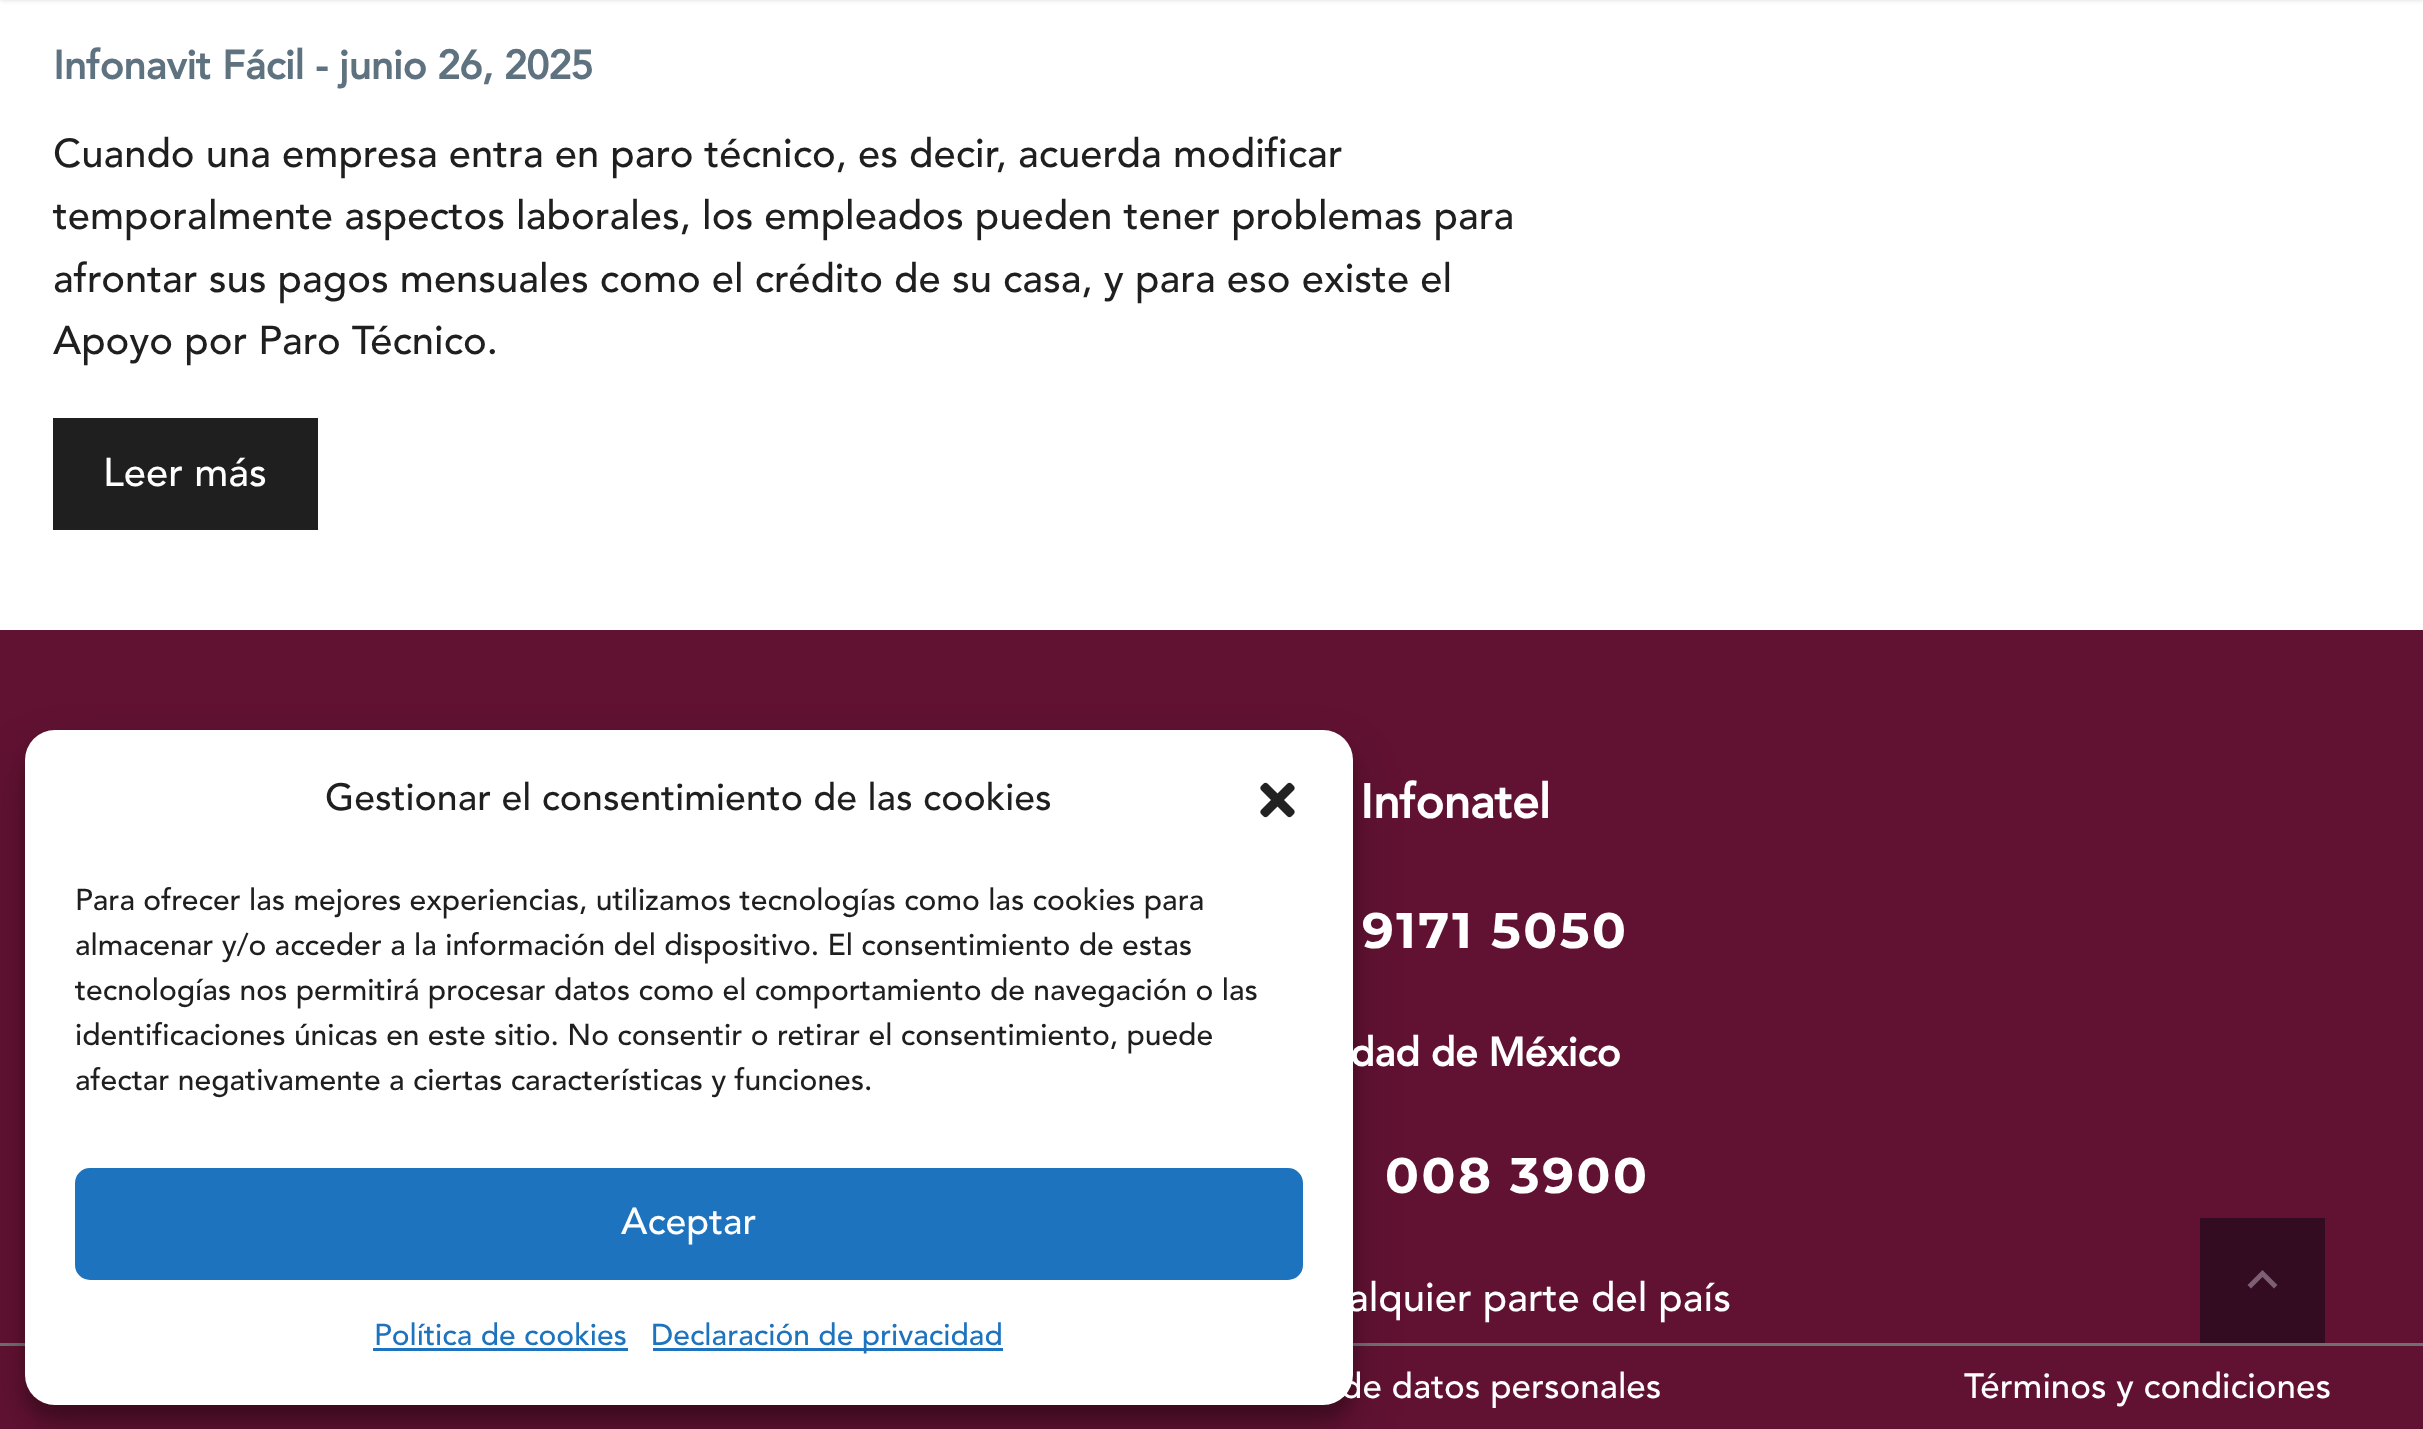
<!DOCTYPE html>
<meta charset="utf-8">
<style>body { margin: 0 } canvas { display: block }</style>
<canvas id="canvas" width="2423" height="1429"></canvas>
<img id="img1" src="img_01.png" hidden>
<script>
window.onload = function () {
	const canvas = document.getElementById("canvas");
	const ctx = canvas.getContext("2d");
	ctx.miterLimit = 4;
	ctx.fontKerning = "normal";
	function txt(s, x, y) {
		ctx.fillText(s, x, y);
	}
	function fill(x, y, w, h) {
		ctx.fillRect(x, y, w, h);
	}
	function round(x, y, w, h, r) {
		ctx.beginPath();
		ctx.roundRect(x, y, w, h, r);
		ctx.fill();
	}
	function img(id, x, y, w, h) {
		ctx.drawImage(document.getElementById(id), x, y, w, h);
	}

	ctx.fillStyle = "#FFFFFF";
	fill(0, 0, 2423, 1429);
	ctx.fillStyle = "rgba(56, 69, 84, 0.2)";
	ctx.filter = "blur(2.5px)";
	ctx.beginPath();
	ctx.rect(0, -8, 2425, 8);
	ctx.fill();
	ctx.filter = "none";
	ctx.fillStyle = "#1F1F1F";
	fill(53, 418, 265, 112);
	ctx.fillStyle = "#611232";
	fill(0, 630, 2423, 713);
	fill(0, 1346, 2423, 83);
	ctx.fillStyle = "#707070";
	fill(0, 1343, 2423, 3);
	ctx.fillStyle = "#340C21";
	fill(2200, 1218, 125, 125);
	ctx.fillStyle = "#7D5E74";
	ctx.beginPath();
	ctx.moveTo(2251, 1288.5);
	ctx.lineTo(2262.5, 1277);
	ctx.lineTo(2274, 1288.5);
	ctx.lineTo(2277.5, 1285);
	ctx.lineTo(2262.5, 1270);
	ctx.lineTo(2247.5, 1285);
	ctx.closePath();
	ctx.fill();
	ctx.fillStyle = "rgba(0, 0, 0, 0.23)";
	ctx.filter = "blur(7.5px)";
	ctx.beginPath();
	ctx.roundRect(25, 745, 1328, 675, 30);
	ctx.fill();
	ctx.filter = "none";
	ctx.fillStyle = "rgba(0, 0, 0, 0.19)";
	ctx.filter = "blur(25px)";
	ctx.beginPath();
	ctx.roundRect(25, 755, 1328, 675, 30);
	ctx.fill();
	ctx.filter = "none";
	ctx.fillStyle = "#FFFFFF";
	round(25, 730, 1328, 675, 30);
	img("img1", 1260, 782, 35, 36);
	ctx.fillStyle = "#1E73BE";
	ctx.beginPath();
	ctx.roundRect(76.5, 1169.5, 1225, 109, 13.5);
	ctx.fill();
	ctx.strokeStyle = "#1E73BE";
	ctx.lineWidth = 3;
	ctx.stroke();
	fill(373, 1348, 255, 3);
	fill(653, 1348, 350, 3);
	ctx.font = "bold 40px Avenir";
	ctx.fillStyle = "#5F727F";
	txt("Infonavit Fácil - junio 26, 2025", 53, 79);
	ctx.font = "500 40px Avenir";
	ctx.fillStyle = "#1F1F1F";
	txt("Cuando una empresa entra en paro técnico, es decir, acuerda modificar", 53, 167);
	txt("temporalmente aspectos laborales, los empleados pueden tener problemas para", 53, 229);
	txt("afrontar sus pagos mensuales como el crédito de su casa, y para eso existe el", 53, 292);
	txt("Apoyo por Paro Técnico.", 53, 354);
	ctx.fillStyle = "#FFFFFF";
	txt("Leer más", 103, 486);
	ctx.font = "bold 47.5px Avenir";
	txt("Infonatel", 1360, 818);
	ctx.letterSpacing = "2.5px";
	ctx.font = "bold 50px Montserrat";
	txt("9171 5050", 1362, 948);
	ctx.letterSpacing = "0px";
	ctx.font = "bold 40px Avenir";
	txt("dad de México", 1350, 1066);
	ctx.letterSpacing = "2.5px";
	ctx.font = "bold 50px Montserrat";
	txt("008 3900", 1385, 1193);
	ctx.letterSpacing = "0px";
	ctx.font = "500 40px Avenir";
	txt("alquier parte del país", 1348, 1311);
	ctx.font = "500 35px Avenir";
	txt("de datos personales", 1341, 1398);
	txt("Términos y condiciones", 1964, 1398);
	ctx.font = "500 37.5px Avenir";
	ctx.fillStyle = "#1F1F1F";
	txt("Gestionar el consentimiento de las cookies", 325, 810);
	ctx.font = "500 30px Avenir";
	txt("Para ofrecer las mejores experiencias, utilizamos tecnologías como las cookies para", 75, 910);
	txt("almacenar y/o acceder a la información del dispositivo. El consentimiento de estas", 75, 955);
	txt("tecnologías nos permitirá procesar datos como el comportamiento de navegación o las", 75, 1000);
	txt("identificaciones únicas en este sitio. No consentir o retirar el consentimiento, puede", 75, 1045);
	txt("afectar negativamente a ciertas características y funciones.", 75, 1090);
	ctx.font = "500 37.5px Avenir";
	ctx.fillStyle = "#FFFFFF";
	txt("Aceptar", 621, 1234);
	ctx.font = "500 30px Avenir";
	ctx.fillStyle = "#1E73BE";
	txt("Política de cookies", 374, 1345);
	txt("Declaración de privacidad", 651, 1345);
};
</script>
